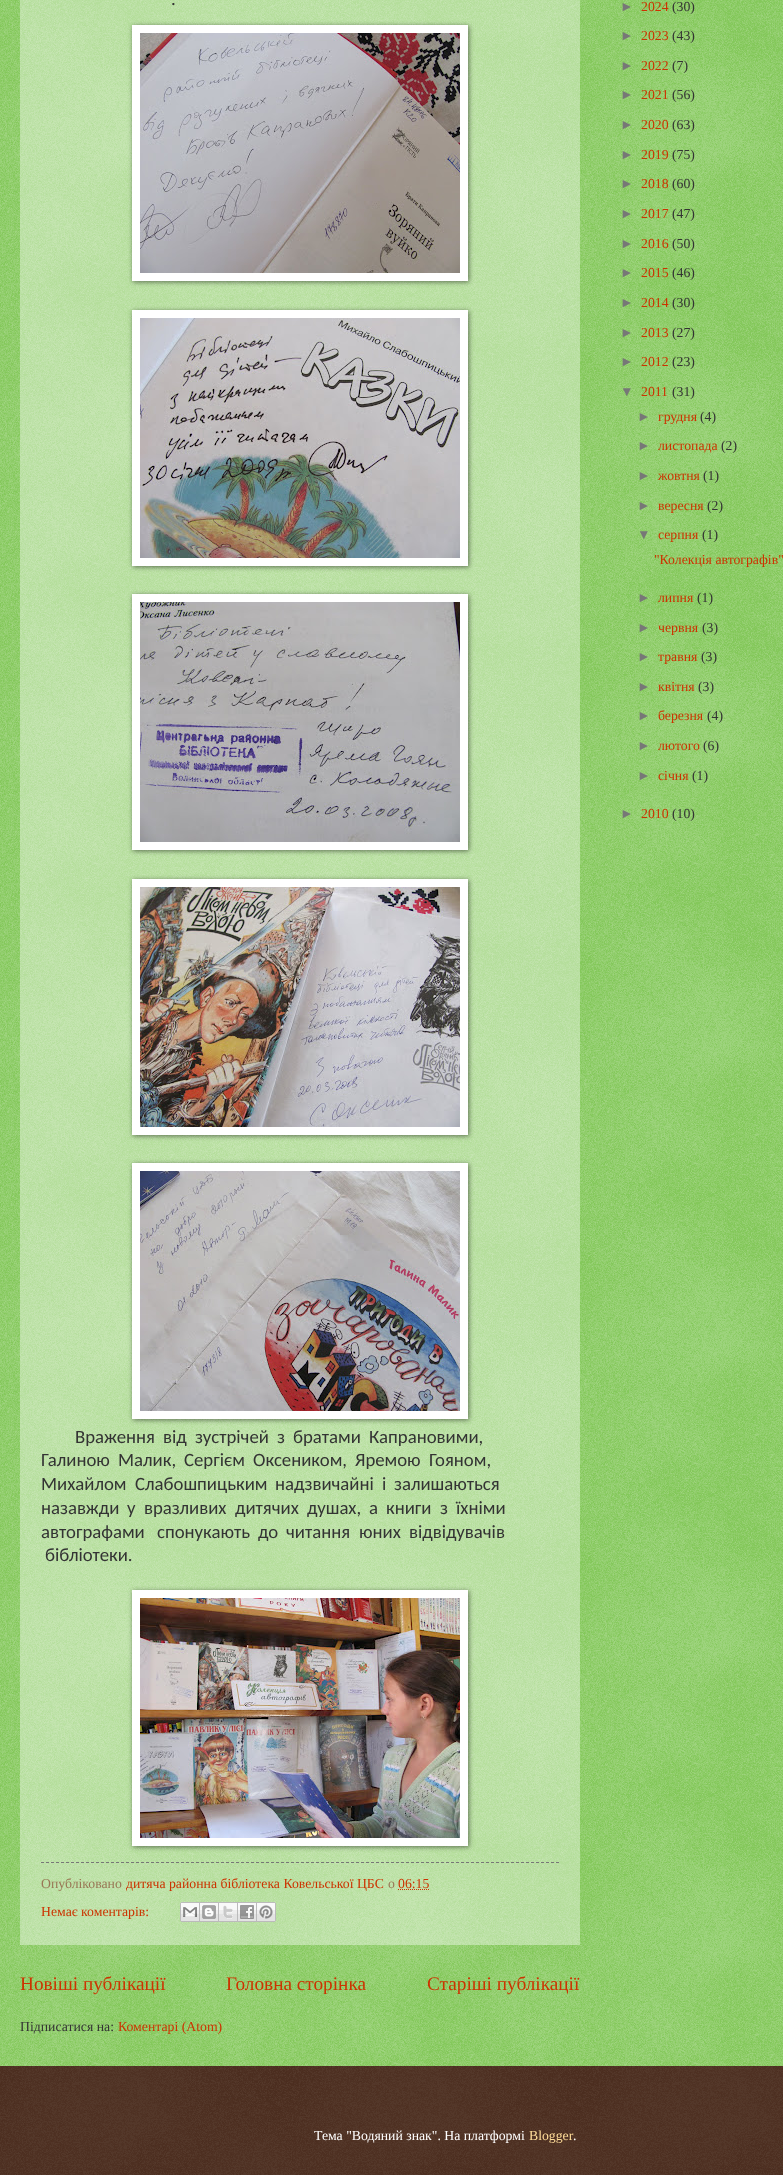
<!DOCTYPE html>
<meta charset="utf-8">
<style>body { margin: 0 } canvas { display: block }</style>
<canvas id="canvas" width="783" height="2175"></canvas>
<img id="img1" src="img_01.png" hidden>
<img id="img2" src="img_02.png" hidden>
<img id="img3" src="img_03.png" hidden>
<img id="img4" src="img_04.png" hidden>
<img id="img5" src="img_05.png" hidden>
<img id="img6" src="img_06.png" hidden>
<img id="img7" src="img_07.png" hidden>
<img id="img8" src="img_08.png" hidden>
<img id="img9" src="img_09.png" hidden>
<img id="img10" src="img_10.png" hidden>
<img id="img11" src="img_11.png" hidden>
<img id="img12" src="img_12.png" hidden>
<img id="img13" src="img_13.png" hidden>
<script>
window.onload = function () {
	const canvas = document.getElementById("canvas");
	const ctx = canvas.getContext("2d");
	ctx.miterLimit = 4;
	ctx.fontKerning = "normal";
	function txt(s, x, y) {
		ctx.fillText(s, x, y);
	}
	function fill(x, y, w, h) {
		ctx.fillRect(x, y, w, h);
	}
	function img(id, x, y, w, h) {
		ctx.drawImage(document.getElementById(id), x, y, w, h);
	}

	ctx.fillStyle = "#66BB33";
	fill(0, 0, 783, 2175);
	img("img1", 0, 0, 783, 2066);
	ctx.fillStyle = "rgba(255, 255, 255, 0.4)";
	fill(20, 0, 560, 1945);
	ctx.fillStyle = "rgba(0, 0, 0, 0.5)";
	ctx.filter = "blur(2.5px)";
	ctx.beginPath();
	ctx.rect(133, 26, 336, 256);
	ctx.fill();
	ctx.filter = "none";
	ctx.fillStyle = "#FFFFFF";
	fill(132, 25, 336, 256);
	img("img2", 140, 33, 320, 240);
	ctx.fillStyle = "rgba(0, 0, 0, 0.5)";
	ctx.filter = "blur(2.5px)";
	ctx.beginPath();
	ctx.rect(133, 311, 336, 256);
	ctx.fill();
	ctx.filter = "none";
	ctx.fillStyle = "#FFFFFF";
	fill(132, 310, 336, 256);
	img("img3", 140, 318, 320, 240);
	ctx.fillStyle = "rgba(0, 0, 0, 0.5)";
	ctx.filter = "blur(2.5px)";
	ctx.beginPath();
	ctx.rect(133, 595, 336, 256);
	ctx.fill();
	ctx.filter = "none";
	ctx.fillStyle = "#FFFFFF";
	fill(132, 594, 336, 256);
	img("img4", 140, 602, 320, 240);
	ctx.fillStyle = "rgba(0, 0, 0, 0.5)";
	ctx.filter = "blur(2.5px)";
	ctx.beginPath();
	ctx.rect(133, 880, 336, 256);
	ctx.fill();
	ctx.filter = "none";
	ctx.fillStyle = "#FFFFFF";
	fill(132, 879, 336, 256);
	img("img5", 140, 887, 320, 240);
	ctx.fillStyle = "rgba(0, 0, 0, 0.5)";
	ctx.filter = "blur(2.5px)";
	ctx.beginPath();
	ctx.rect(133, 1164, 336, 256);
	ctx.fill();
	ctx.filter = "none";
	ctx.fillStyle = "#FFFFFF";
	fill(132, 1163, 336, 256);
	img("img6", 140, 1171, 320, 240);
	ctx.fillStyle = "rgba(0, 0, 0, 0.5)";
	ctx.filter = "blur(2.5px)";
	ctx.beginPath();
	ctx.rect(133, 1591, 336, 256);
	ctx.fill();
	ctx.filter = "none";
	ctx.fillStyle = "#FFFFFF";
	fill(132, 1590, 336, 256);
	img("img7", 140, 1598, 320, 240);
	ctx.beginPath();
	ctx.moveTo(41, 1862.5);
	ctx.lineTo(559, 1862.5);
	ctx.strokeStyle = "#777777";
	ctx.setLineDash([3, 2]);
	ctx.stroke();
	ctx.beginPath();
	ctx.moveTo(398, 1889.5);
	ctx.lineTo(429.5, 1889.5);
	ctx.strokeStyle = "#CC3300";
	ctx.setLineDash([1, 1]);
	ctx.stroke();
	img("img8", 180, 1902, 20, 20);
	img("img9", 200, 1902, 19, 20);
	img("img10", 219, 1902, 19, 20);
	img("img11", 238, 1902, 19, 20);
	img("img12", 257, 1902, 19, 20);
	ctx.fillStyle = "#331100";
	fill(0, 2066, 783, 109);
	img("img13", 0, 2066, 783, 109);
	ctx.font = "18.75px Carlito";
	ctx.fillStyle = "#333333";
	txt(".", 171, 5);
	txt("Враження", 75, 1443);
	txt("від", 163, 1443);
	txt("зустрічей", 195, 1443);
	txt("з", 277, 1443);
	txt("братами", 293, 1443);
	txt("Капрановими,", 369, 1443);
	txt("Галиною", 41, 1466);
	txt("Малик,", 118, 1466);
	txt("Сергієм", 184, 1466);
	txt("Оксеником,", 253, 1466);
	txt("Яремою", 355, 1466);
	txt("Гояном,", 429, 1466);
	txt("Михайлом", 41, 1490);
	txt("Слабошпицьким", 135, 1490);
	txt("надзвичайні", 275, 1490);
	txt("і", 382, 1490);
	txt("залишаються", 394, 1490);
	txt("назавжди", 41, 1514);
	txt("у", 127, 1514);
	txt("вразливих", 144, 1514);
	txt("дитячих", 235, 1514);
	txt("душах,", 307, 1514);
	txt("а", 369, 1514);
	txt("книги", 386, 1514);
	txt("з", 440, 1514);
	txt("їхніми", 456, 1514);
	txt("автографами", 41, 1538);
	txt("спонукають", 157, 1538);
	txt("до", 258, 1538);
	txt("читання", 286, 1538);
	txt("юних", 359, 1538);
	txt("відвідувачів", 409, 1538);
	txt("бібліотеки.", 45, 1561);
	ctx.font = "13.75px Liberation Serif";
	ctx.fillStyle = "#997755";
	txt("Опубліковано", 41, 1888);
	ctx.fillStyle = "#CC3300";
	txt("дитяча районна бібліотека Ковельської ЦБС", 126, 1888);
	ctx.fillStyle = "#997755";
	txt("о", 388, 1888);
	ctx.fillStyle = "#CC3300";
	txt("06:15", 398, 1888);
	txt("Немає коментарів:", 41, 1916);
	ctx.font = "19.25px Liberation Serif";
	txt("Новіші публікації", 20, 1990);
	txt("Головна сторінка", 226, 1990);
	txt("Старіші публікації", 427, 1990);
	ctx.font = "13.75px Liberation Serif";
	ctx.fillStyle = "#333333";
	txt("Підписатися на:", 20, 2031);
	ctx.fillStyle = "#CC3300";
	txt("Коментарі (Atom)", 118, 2031);
	ctx.font = "13.75px Liberation Sans";
	ctx.fillStyle = "#777777";
	txt("►", 620, 11);
	ctx.font = "13.75px Liberation Serif";
	ctx.fillStyle = "#CC3300";
	txt("2024", 641, 11);
	ctx.fillStyle = "#333333";
	txt("(30)", 672, 11);
	ctx.font = "13.75px Liberation Sans";
	ctx.fillStyle = "#777777";
	txt("►", 620, 40);
	ctx.font = "13.75px Liberation Serif";
	ctx.fillStyle = "#CC3300";
	txt("2023", 641, 40);
	ctx.fillStyle = "#333333";
	txt("(43)", 672, 40);
	ctx.font = "13.75px Liberation Sans";
	ctx.fillStyle = "#777777";
	txt("►", 620, 70);
	ctx.font = "13.75px Liberation Serif";
	ctx.fillStyle = "#CC3300";
	txt("2022", 641, 70);
	ctx.fillStyle = "#333333";
	txt("(7)", 672, 70);
	ctx.font = "13.75px Liberation Sans";
	ctx.fillStyle = "#777777";
	txt("►", 620, 99);
	ctx.font = "13.75px Liberation Serif";
	ctx.fillStyle = "#CC3300";
	txt("2021", 641, 99);
	ctx.fillStyle = "#333333";
	txt("(56)", 672, 99);
	ctx.font = "13.75px Liberation Sans";
	ctx.fillStyle = "#777777";
	txt("►", 620, 129);
	ctx.font = "13.75px Liberation Serif";
	ctx.fillStyle = "#CC3300";
	txt("2020", 641, 129);
	ctx.fillStyle = "#333333";
	txt("(63)", 672, 129);
	ctx.font = "13.75px Liberation Sans";
	ctx.fillStyle = "#777777";
	txt("►", 620, 159);
	ctx.font = "13.75px Liberation Serif";
	ctx.fillStyle = "#CC3300";
	txt("2019", 641, 159);
	ctx.fillStyle = "#333333";
	txt("(75)", 672, 159);
	ctx.font = "13.75px Liberation Sans";
	ctx.fillStyle = "#777777";
	txt("►", 620, 188);
	ctx.font = "13.75px Liberation Serif";
	ctx.fillStyle = "#CC3300";
	txt("2018", 641, 188);
	ctx.fillStyle = "#333333";
	txt("(60)", 672, 188);
	ctx.font = "13.75px Liberation Sans";
	ctx.fillStyle = "#777777";
	txt("►", 620, 218);
	ctx.font = "13.75px Liberation Serif";
	ctx.fillStyle = "#CC3300";
	txt("2017", 641, 218);
	ctx.fillStyle = "#333333";
	txt("(47)", 672, 218);
	ctx.font = "13.75px Liberation Sans";
	ctx.fillStyle = "#777777";
	txt("►", 620, 248);
	ctx.font = "13.75px Liberation Serif";
	ctx.fillStyle = "#CC3300";
	txt("2016", 641, 248);
	ctx.fillStyle = "#333333";
	txt("(50)", 672, 248);
	ctx.font = "13.75px Liberation Sans";
	ctx.fillStyle = "#777777";
	txt("►", 620, 277);
	ctx.font = "13.75px Liberation Serif";
	ctx.fillStyle = "#CC3300";
	txt("2015", 641, 277);
	ctx.fillStyle = "#333333";
	txt("(46)", 672, 277);
	ctx.font = "13.75px Liberation Sans";
	ctx.fillStyle = "#777777";
	txt("►", 620, 307);
	ctx.font = "13.75px Liberation Serif";
	ctx.fillStyle = "#CC3300";
	txt("2014", 641, 307);
	ctx.fillStyle = "#333333";
	txt("(30)", 672, 307);
	ctx.font = "13.75px Liberation Sans";
	ctx.fillStyle = "#777777";
	txt("►", 620, 337);
	ctx.font = "13.75px Liberation Serif";
	ctx.fillStyle = "#CC3300";
	txt("2013", 641, 337);
	ctx.fillStyle = "#333333";
	txt("(27)", 672, 337);
	ctx.font = "13.75px Liberation Sans";
	ctx.fillStyle = "#777777";
	txt("►", 620, 366);
	ctx.font = "13.75px Liberation Serif";
	ctx.fillStyle = "#CC3300";
	txt("2012", 641, 366);
	ctx.fillStyle = "#333333";
	txt("(23)", 672, 366);
	ctx.font = "13.75px Liberation Sans";
	ctx.fillStyle = "#777777";
	txt("▼", 620, 396);
	ctx.font = "13.75px Liberation Serif";
	ctx.fillStyle = "#CC3300";
	txt("2011", 641, 396);
	ctx.fillStyle = "#333333";
	txt("(31)", 672, 396);
	ctx.font = "13.75px Liberation Sans";
	ctx.fillStyle = "#777777";
	txt("►", 637, 421);
	ctx.font = "13.75px Liberation Serif";
	ctx.fillStyle = "#CC3300";
	txt("грудня", 658, 421);
	ctx.fillStyle = "#333333";
	txt("(4)", 700, 421);
	ctx.font = "13.75px Liberation Sans";
	ctx.fillStyle = "#777777";
	txt("►", 637, 450);
	ctx.font = "13.75px Liberation Serif";
	ctx.fillStyle = "#CC3300";
	txt("листопада", 658, 450);
	ctx.fillStyle = "#333333";
	txt("(2)", 721, 450);
	ctx.font = "13.75px Liberation Sans";
	ctx.fillStyle = "#777777";
	txt("►", 637, 480);
	ctx.font = "13.75px Liberation Serif";
	ctx.fillStyle = "#CC3300";
	txt("жовтня", 658, 480);
	ctx.fillStyle = "#333333";
	txt("(1)", 703, 480);
	ctx.font = "13.75px Liberation Sans";
	ctx.fillStyle = "#777777";
	txt("►", 637, 510);
	ctx.font = "13.75px Liberation Serif";
	ctx.fillStyle = "#CC3300";
	txt("вересня", 658, 510);
	ctx.fillStyle = "#333333";
	txt("(2)", 707, 510);
	ctx.font = "13.75px Liberation Sans";
	ctx.fillStyle = "#777777";
	txt("▼", 637, 539);
	ctx.font = "13.75px Liberation Serif";
	ctx.fillStyle = "#CC3300";
	txt("серпня", 658, 539);
	ctx.fillStyle = "#333333";
	txt("(1)", 702, 539);
	ctx.fillStyle = "#CC3300";
	txt("\"Колекція автографів\"", 654, 564);
	ctx.font = "13.75px Liberation Sans";
	ctx.fillStyle = "#777777";
	txt("►", 637, 602);
	ctx.font = "13.75px Liberation Serif";
	ctx.fillStyle = "#CC3300";
	txt("липня", 658, 602);
	ctx.fillStyle = "#333333";
	txt("(1)", 697, 602);
	ctx.font = "13.75px Liberation Sans";
	ctx.fillStyle = "#777777";
	txt("►", 637, 632);
	ctx.font = "13.75px Liberation Serif";
	ctx.fillStyle = "#CC3300";
	txt("червня", 658, 632);
	ctx.fillStyle = "#333333";
	txt("(3)", 702, 632);
	ctx.font = "13.75px Liberation Sans";
	ctx.fillStyle = "#777777";
	txt("►", 637, 661);
	ctx.font = "13.75px Liberation Serif";
	ctx.fillStyle = "#CC3300";
	txt("травня", 658, 661);
	ctx.fillStyle = "#333333";
	txt("(3)", 701, 661);
	ctx.font = "13.75px Liberation Sans";
	ctx.fillStyle = "#777777";
	txt("►", 637, 691);
	ctx.font = "13.75px Liberation Serif";
	ctx.fillStyle = "#CC3300";
	txt("квітня", 658, 691);
	ctx.fillStyle = "#333333";
	txt("(3)", 698, 691);
	ctx.font = "13.75px Liberation Sans";
	ctx.fillStyle = "#777777";
	txt("►", 637, 720);
	ctx.font = "13.75px Liberation Serif";
	ctx.fillStyle = "#CC3300";
	txt("березня", 658, 720);
	ctx.fillStyle = "#333333";
	txt("(4)", 707, 720);
	ctx.font = "13.75px Liberation Sans";
	ctx.fillStyle = "#777777";
	txt("►", 637, 750);
	ctx.font = "13.75px Liberation Serif";
	ctx.fillStyle = "#CC3300";
	txt("лютого", 658, 750);
	ctx.fillStyle = "#333333";
	txt("(6)", 703, 750);
	ctx.font = "13.75px Liberation Sans";
	ctx.fillStyle = "#777777";
	txt("►", 637, 780);
	ctx.font = "13.75px Liberation Serif";
	ctx.fillStyle = "#CC3300";
	txt("січня", 658, 780);
	ctx.fillStyle = "#333333";
	txt("(1)", 692, 780);
	ctx.font = "13.75px Liberation Sans";
	ctx.fillStyle = "#777777";
	txt("►", 620, 818);
	ctx.font = "13.75px Liberation Serif";
	ctx.fillStyle = "#CC3300";
	txt("2010", 641, 818);
	ctx.fillStyle = "#333333";
	txt("(10)", 672, 818);
	ctx.fillStyle = "#FFFFFF";
	txt("Тема \"Водяний знак\". На платформі", 314, 2140);
	ctx.fillStyle = "#FFDD99";
	txt("Blogger", 529, 2140);
	ctx.fillStyle = "#FFFFFF";
	txt(".", 573, 2140);
};
</script>
